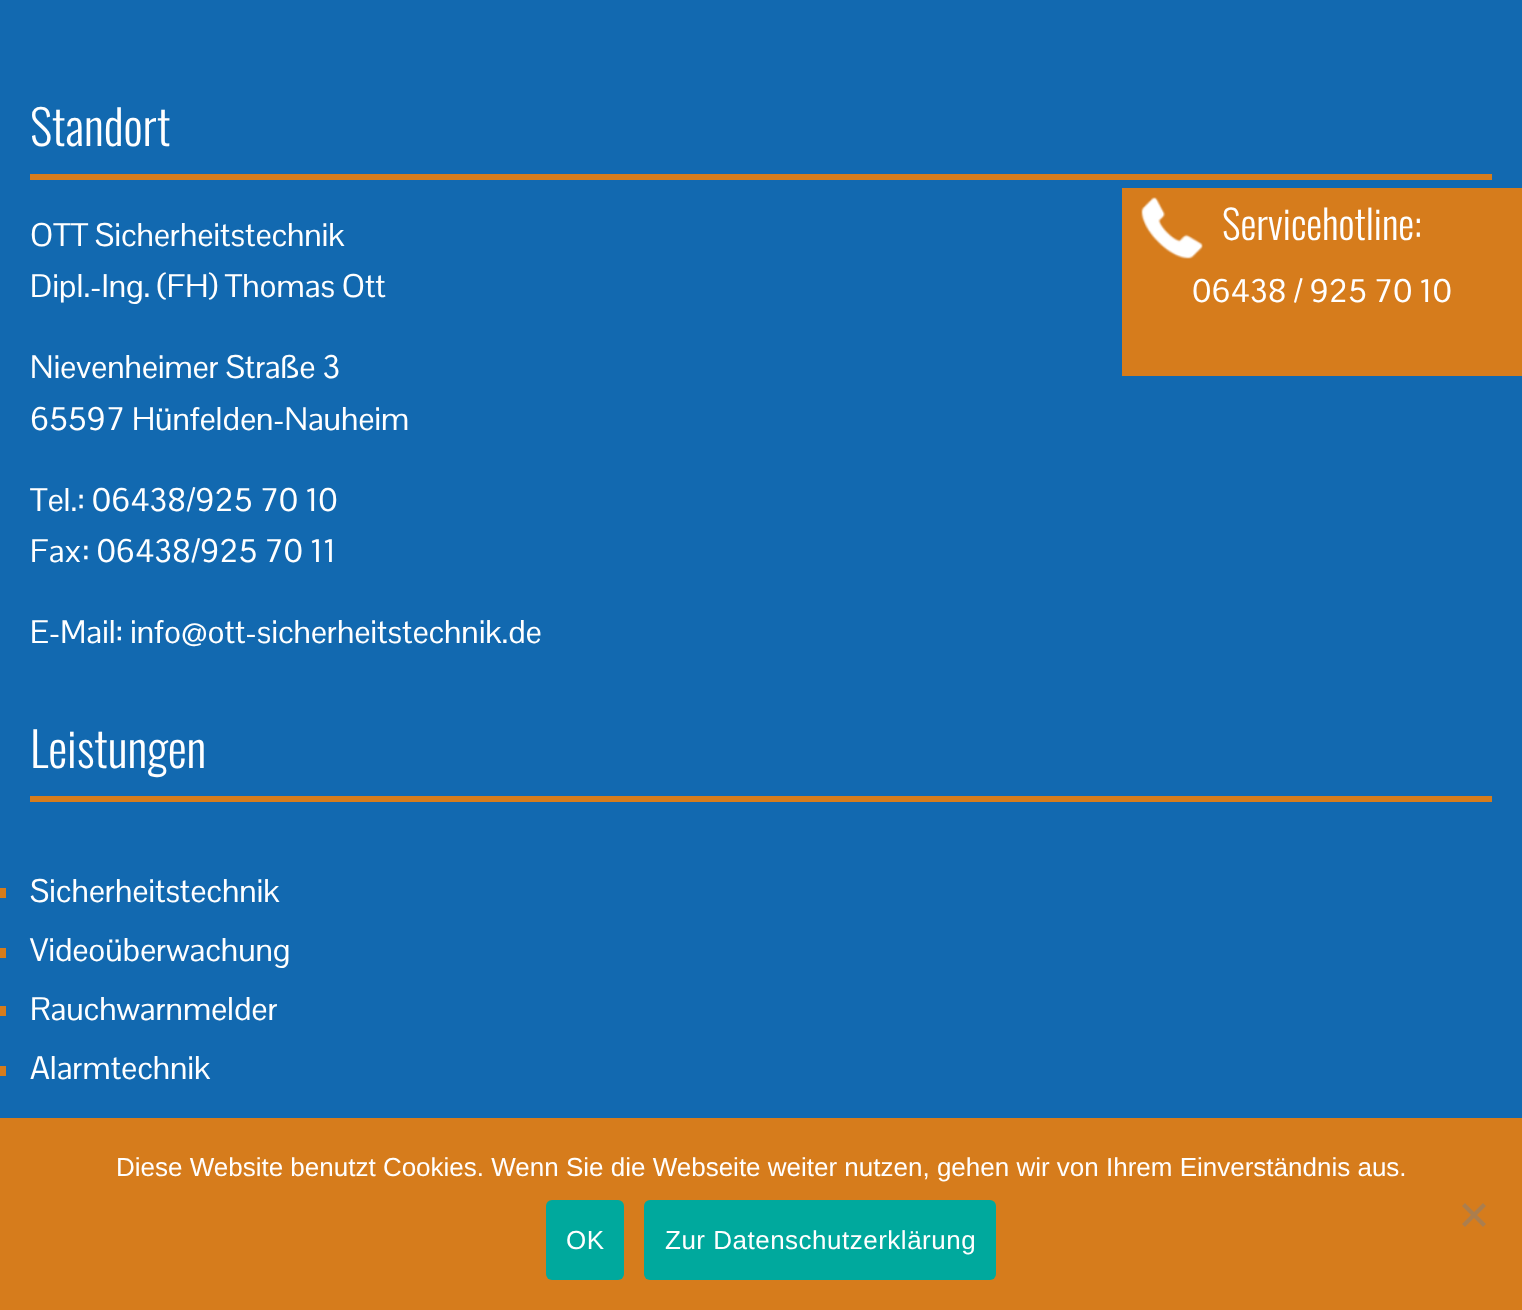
<!DOCTYPE html>
<meta charset="utf-8">
<style>body { margin: 0 } canvas { display: block }</style>
<canvas id="canvas" width="1522" height="1310"></canvas>
<img id="img1" src="img_01.png" hidden>
<script>
window.onload = function () {
	const canvas = document.getElementById("canvas");
	const ctx = canvas.getContext("2d");
	ctx.miterLimit = 4;
	ctx.fontKerning = "normal";
	function txt(s, x, y) {
		ctx.fillText(s, x, y);
	}
	function fill(x, y, w, h) {
		ctx.fillRect(x, y, w, h);
	}
	function round(x, y, w, h, r) {
		ctx.beginPath();
		ctx.roundRect(x, y, w, h, r);
		ctx.fill();
	}
	function img(id, x, y, w, h) {
		ctx.drawImage(document.getElementById(id), x, y, w, h);
	}

	ctx.fillStyle = "#1269B0";
	fill(0, 0, 1522, 1310);
	ctx.fillStyle = "#D67C1C";
	fill(30, 174, 1462, 6);
	fill(30, 796, 1462, 6);
	fill(0, 888, 6, 10);
	fill(0, 948, 6, 10);
	fill(0, 1006, 6, 10);
	fill(0, 1066, 6, 10);
	fill(1122, 188, 400, 188);
	img("img1", 1141, 197, 62, 62);
	fill(0, 1118, 1522, 192);
	ctx.fillStyle = "#AB7E4E";
	ctx.beginPath();
	ctx.moveTo(1483, 1203);
	ctx.lineTo(1486, 1206);
	ctx.lineTo(1465, 1227);
	ctx.lineTo(1462, 1224);
	ctx.closePath();
	ctx.fill();
	ctx.beginPath();
	ctx.moveTo(1462, 1206);
	ctx.lineTo(1465, 1203);
	ctx.lineTo(1486, 1224);
	ctx.lineTo(1483, 1227);
	ctx.closePath();
	ctx.fill();
	ctx.fillStyle = "#00A99D";
	round(546, 1200, 78, 80, 6);
	round(644, 1200, 352, 80, 6);
	ctx.font = "300 48px Oswald";
	ctx.fillStyle = "#FFFFFF";
	txt("Standort", 30, 146);
	ctx.font = "32px Pontano Sans";
	txt("OTT Sicherheitstechnik", 30, 246);
	txt("Dipl.-Ing. (FH) Thomas Ott", 30, 297);
	txt("Nievenheimer Straße 3", 30, 378);
	txt("65597 Hünfelden-Nauheim", 30, 430);
	txt("Tel.: 06438/925 70 10", 30, 511);
	txt("Fax: 06438/925 70 11", 30, 562);
	txt("E-Mail: info@ott-sicherheitstechnik.de", 30, 643);
	ctx.font = "300 48px Oswald";
	txt("Leistungen", 30, 768);
	ctx.font = "32px Pontano Sans";
	txt("Sicherheitstechnik", 30, 902);
	txt("Videoüberwachung", 30, 961);
	txt("Rauchwarnmelder", 30, 1020);
	txt("Alarmtechnik", 30, 1079);
	ctx.font = "300 40px Oswald";
	txt("Servicehotline:", 1222, 240);
	ctx.font = "32px Pontano Sans";
	txt("06438 / 925 70 10", 1192, 302);
	ctx.font = "26px Liberation Sans";
	txt("Diese Website benutzt Cookies. Wenn Sie die Webseite weiter nutzen, gehen wir von Ihrem Einverständnis aus.", 116, 1176);
	ctx.letterSpacing = "0.5px";
	txt("OK", 566, 1249);
	txt("Zur Datenschutzerklärung", 665, 1249);
};
</script>
